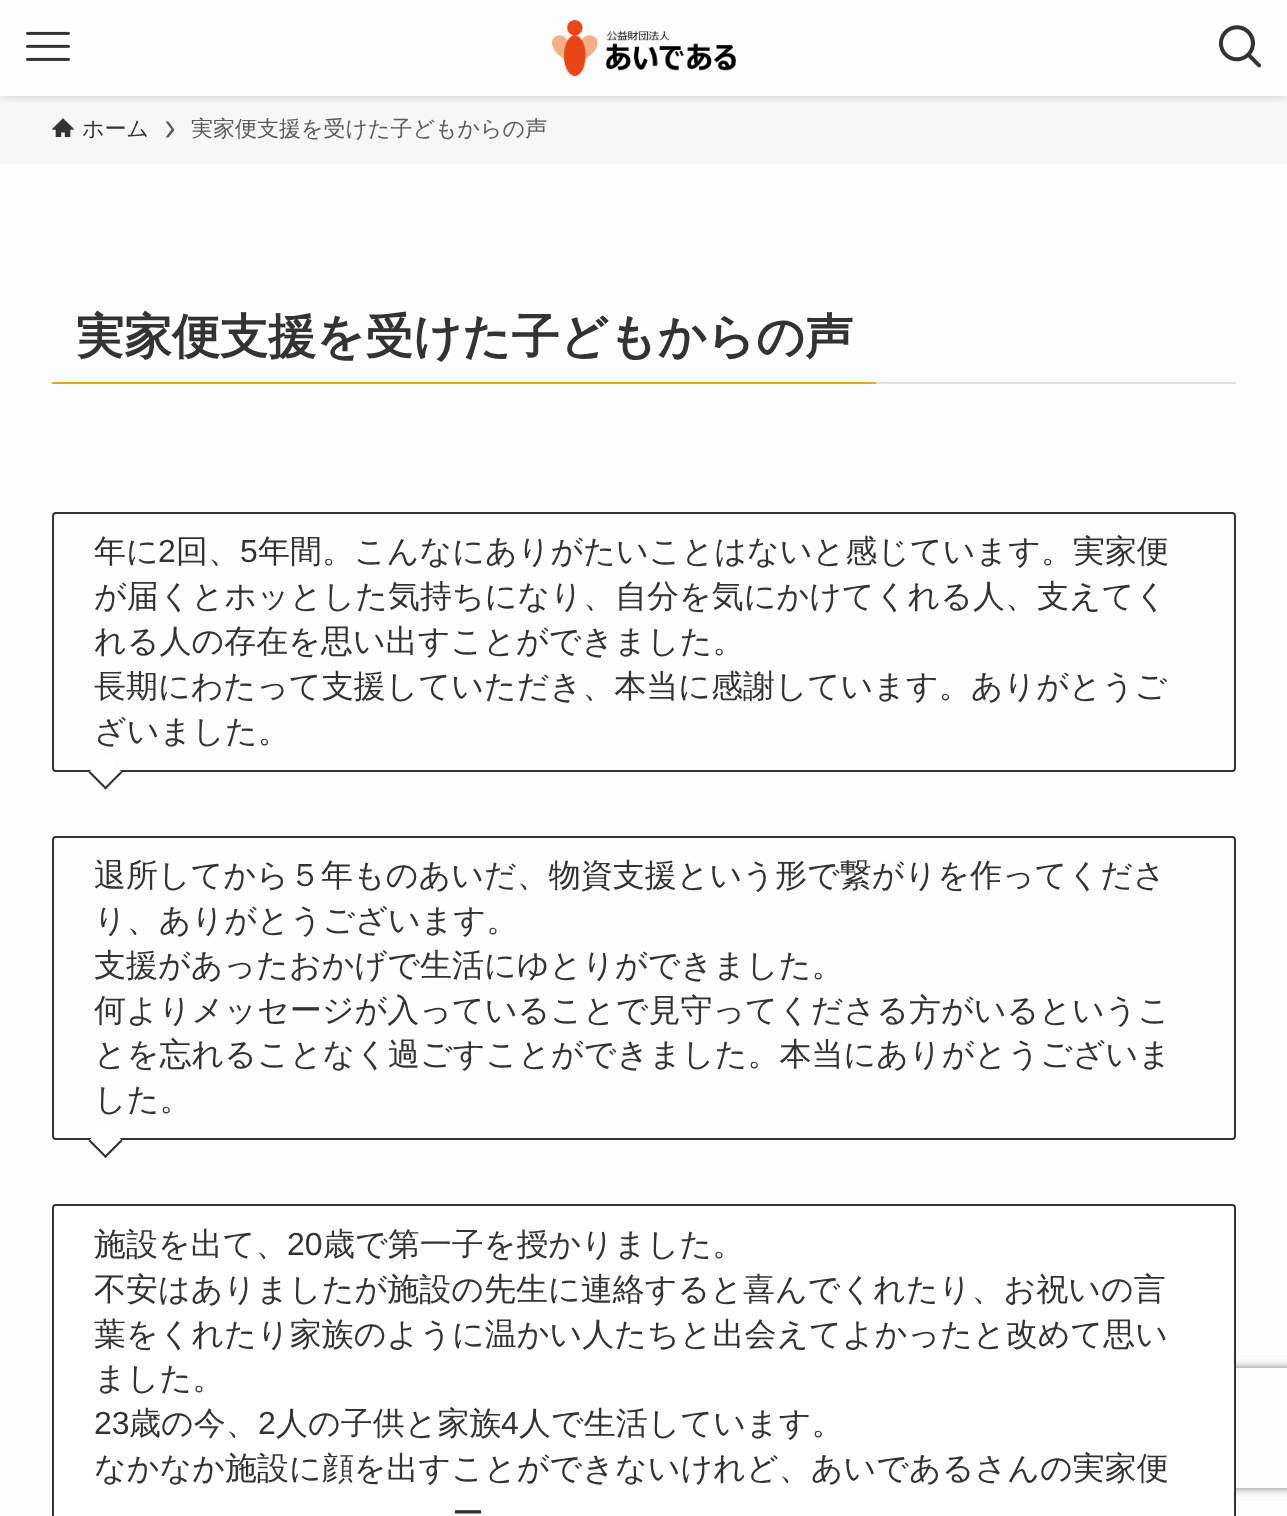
<!DOCTYPE html>
<meta charset="utf-8">
<style>body { margin: 0 } canvas { display: block }</style>
<canvas id="canvas" width="1287" height="1516"></canvas>
<img id="img1" src="img_01.png" hidden>
<img id="img2" src="img_02.png" hidden>
<img id="img3" src="img_03.png" hidden>
<img id="img4" src="img_04.png" hidden>
<script>
window.onload = function () {
	const canvas = document.getElementById("canvas");
	const ctx = canvas.getContext("2d");
	ctx.miterLimit = 4;
	ctx.fontKerning = "normal";
	function txt(s, x, y) {
		ctx.fillText(s, x, y);
	}
	function fill(x, y, w, h) {
		ctx.fillRect(x, y, w, h);
	}
	function img(id, x, y, w, h) {
		ctx.drawImage(document.getElementById(id), x, y, w, h);
	}

	ctx.fillStyle = "#FDFDFD";
	fill(0, 0, 1287, 1516);
	ctx.fillStyle = "#F7F7F7";
	fill(0, 96, 1287, 68);
	ctx.save();
	ctx.beginPath();
	ctx.rect(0, 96, 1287, 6);
	ctx.clip();
	ctx.fillStyle = "rgba(0, 0, 0, 0.12)";
	ctx.filter = "blur(4px)";
	ctx.beginPath();
	ctx.rect(0, 2, 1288, 96);
	ctx.fill();
	ctx.filter = "none";
	ctx.restore();
	img("img1", 26, 31, 44, 30);
	img("img2", 552, 20, 184, 56);
	img("img3", 1219, 25, 43, 43);
	img("img4", 52, 118, 22, 19);
	ctx.fillStyle = "#5A5A5A";
	ctx.beginPath();
	ctx.moveTo(168.5, 121.5);
	ctx.lineTo(165.5, 121.5);
	ctx.lineTo(171.5, 129.5);
	ctx.lineTo(165.5, 137.5);
	ctx.lineTo(168.5, 137.5);
	ctx.lineTo(174.5, 130);
	ctx.closePath();
	ctx.fill();
	ctx.fillStyle = "#E2E2E2";
	fill(876, 382, 360, 2);
	ctx.fillStyle = "#EAA417";
	fill(52, 382, 824, 2);
	ctx.beginPath();
	ctx.roundRect(53, 513, 1182, 258, 3);
	ctx.strokeStyle = "#333333";
	ctx.lineWidth = 2;
	ctx.stroke();
	ctx.fillStyle = "#FFFFFF";
	ctx.beginPath();
	ctx.moveTo(105.5, 755.5);
	ctx.lineTo(122.5, 772.5);
	ctx.lineTo(105.5, 789.5);
	ctx.lineTo(88.5, 772.5);
	ctx.closePath();
	ctx.fill();
	ctx.fillStyle = "#333333";
	ctx.beginPath();
	ctx.moveTo(121, 771);
	ctx.lineTo(122.5, 772.5);
	ctx.lineTo(105.5, 789.5);
	ctx.lineTo(104, 788);
	ctx.closePath();
	ctx.fill();
	ctx.beginPath();
	ctx.moveTo(90, 771);
	ctx.lineTo(107, 788);
	ctx.lineTo(105.5, 789.5);
	ctx.lineTo(88.5, 772.5);
	ctx.closePath();
	ctx.fill();
	ctx.beginPath();
	ctx.roundRect(53, 837, 1182, 302, 3);
	ctx.stroke();
	ctx.fillStyle = "#FFFFFF";
	ctx.beginPath();
	ctx.moveTo(105.5, 1124);
	ctx.lineTo(122.5, 1141);
	ctx.lineTo(105.5, 1158);
	ctx.lineTo(88.5, 1141);
	ctx.closePath();
	ctx.fill();
	ctx.fillStyle = "#333333";
	ctx.beginPath();
	ctx.moveTo(121, 1139.5);
	ctx.lineTo(122.5, 1141);
	ctx.lineTo(105.5, 1158);
	ctx.lineTo(104, 1156.5);
	ctx.closePath();
	ctx.fill();
	ctx.beginPath();
	ctx.moveTo(90, 1139.5);
	ctx.lineTo(107, 1156.5);
	ctx.lineTo(105.5, 1158);
	ctx.lineTo(88.5, 1141);
	ctx.closePath();
	ctx.fill();
	ctx.save();
	ctx.beginPath();
	ctx.moveTo(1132, 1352);
	ctx.lineTo(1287, 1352);
	ctx.lineTo(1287, 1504);
	ctx.lineTo(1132, 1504);
	ctx.closePath();
	ctx.moveTo(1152, 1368);
	ctx.lineTo(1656, 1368);
	ctx.bezierCurveTo(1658, 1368, 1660, 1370, 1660, 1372);
	ctx.lineTo(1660, 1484);
	ctx.bezierCurveTo(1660, 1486, 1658, 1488, 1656, 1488);
	ctx.lineTo(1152, 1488);
	ctx.bezierCurveTo(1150, 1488, 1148, 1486, 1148, 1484);
	ctx.lineTo(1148, 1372);
	ctx.bezierCurveTo(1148, 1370, 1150, 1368, 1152, 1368);
	ctx.closePath();
	ctx.clip("evenodd");
	ctx.fillStyle = "#808080";
	ctx.filter = "blur(5px)";
	ctx.beginPath();
	ctx.roundRect(1148, 1368, 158, 120, 4);
	ctx.fill();
	ctx.filter = "none";
	ctx.restore();
	ctx.fillStyle = "#FFFFFF";
	ctx.beginPath();
	ctx.roundRect(53, 1205, 1182, 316, 3);
	ctx.fill();
	ctx.stroke();
	ctx.font = "500 22px WenQuanYi Zen Hei";
	ctx.fillStyle = "#333333";
	txt("ホーム", 82, 136);
	ctx.fillStyle = "#5A5A5A";
	txt("実家便支援を受けた子どもからの声", 191, 136);
	ctx.font = "bold 48px WenQuanYi Zen Hei";
	ctx.fillStyle = "#333333";
	txt("実家便支援を受けた子どもからの声", 76, 353);
	ctx.font = "500 32px WenQuanYi Zen Hei";
	txt("年に", 94, 562);
	ctx.font = "32px Liberation Sans";
	txt("2", 158, 562);
	ctx.font = "500 32px WenQuanYi Zen Hei";
	txt("回、", 176, 562);
	ctx.font = "32px Liberation Sans";
	txt("5", 240, 562);
	ctx.font = "500 32px WenQuanYi Zen Hei";
	txt("年間。こんなにありがたいことはないと感じています。実家便", 258, 562);
	txt("が届くとホッとした気持ちになり、自分を気にかけてくれる人、支えてく", 94, 607);
	txt("れる人の存在を思い出すことができました。", 94, 652);
	txt("長期にわたって支援していただき、本当に感謝しています。ありがとうご", 94, 697);
	txt("ざいました。", 94, 742);
	txt("退所してから５年ものあいだ、物資支援という形で繋がりを作ってくださ", 94, 886);
	txt("り、ありがとうございます。", 94, 931);
	txt("支援があったおかげで生活にゆとりができました。", 94, 976);
	txt("何よりメッセージが入っていることで見守ってくださる方がいるというこ", 94, 1021);
	txt("とを忘れることなく過ごすことができました。本当にありがとうございま", 94, 1065);
	txt("した。", 94, 1110);
	txt("施設を出て、", 94, 1255);
	ctx.font = "32px Liberation Sans";
	txt("20", 287, 1255);
	ctx.font = "500 32px WenQuanYi Zen Hei";
	txt("歳で第一子を授かりました。", 323, 1255);
	txt("不安はありましたが施設の先生に連絡すると喜んでくれたり、お祝いの言", 94, 1300);
	txt("葉をくれたり家族のように温かい人たちと出会えてよかったと改めて思い", 94, 1345);
	txt("ました。", 94, 1389);
	ctx.font = "32px Liberation Sans";
	txt("23", 94, 1434);
	ctx.font = "500 32px WenQuanYi Zen Hei";
	txt("歳の今、", 129, 1434);
	ctx.font = "32px Liberation Sans";
	txt("2", 258, 1434);
	ctx.font = "500 32px WenQuanYi Zen Hei";
	txt("人の子供と家族", 276, 1434);
	ctx.font = "32px Liberation Sans";
	txt("4", 501, 1434);
	ctx.font = "500 32px WenQuanYi Zen Hei";
	txt("人で生活しています。", 519, 1434);
	txt("なかなか施設に顔を出すことができないけれど、あいであるさんの実家便", 94, 1479);
	txt("ー", 452, 1524);
};
</script>
